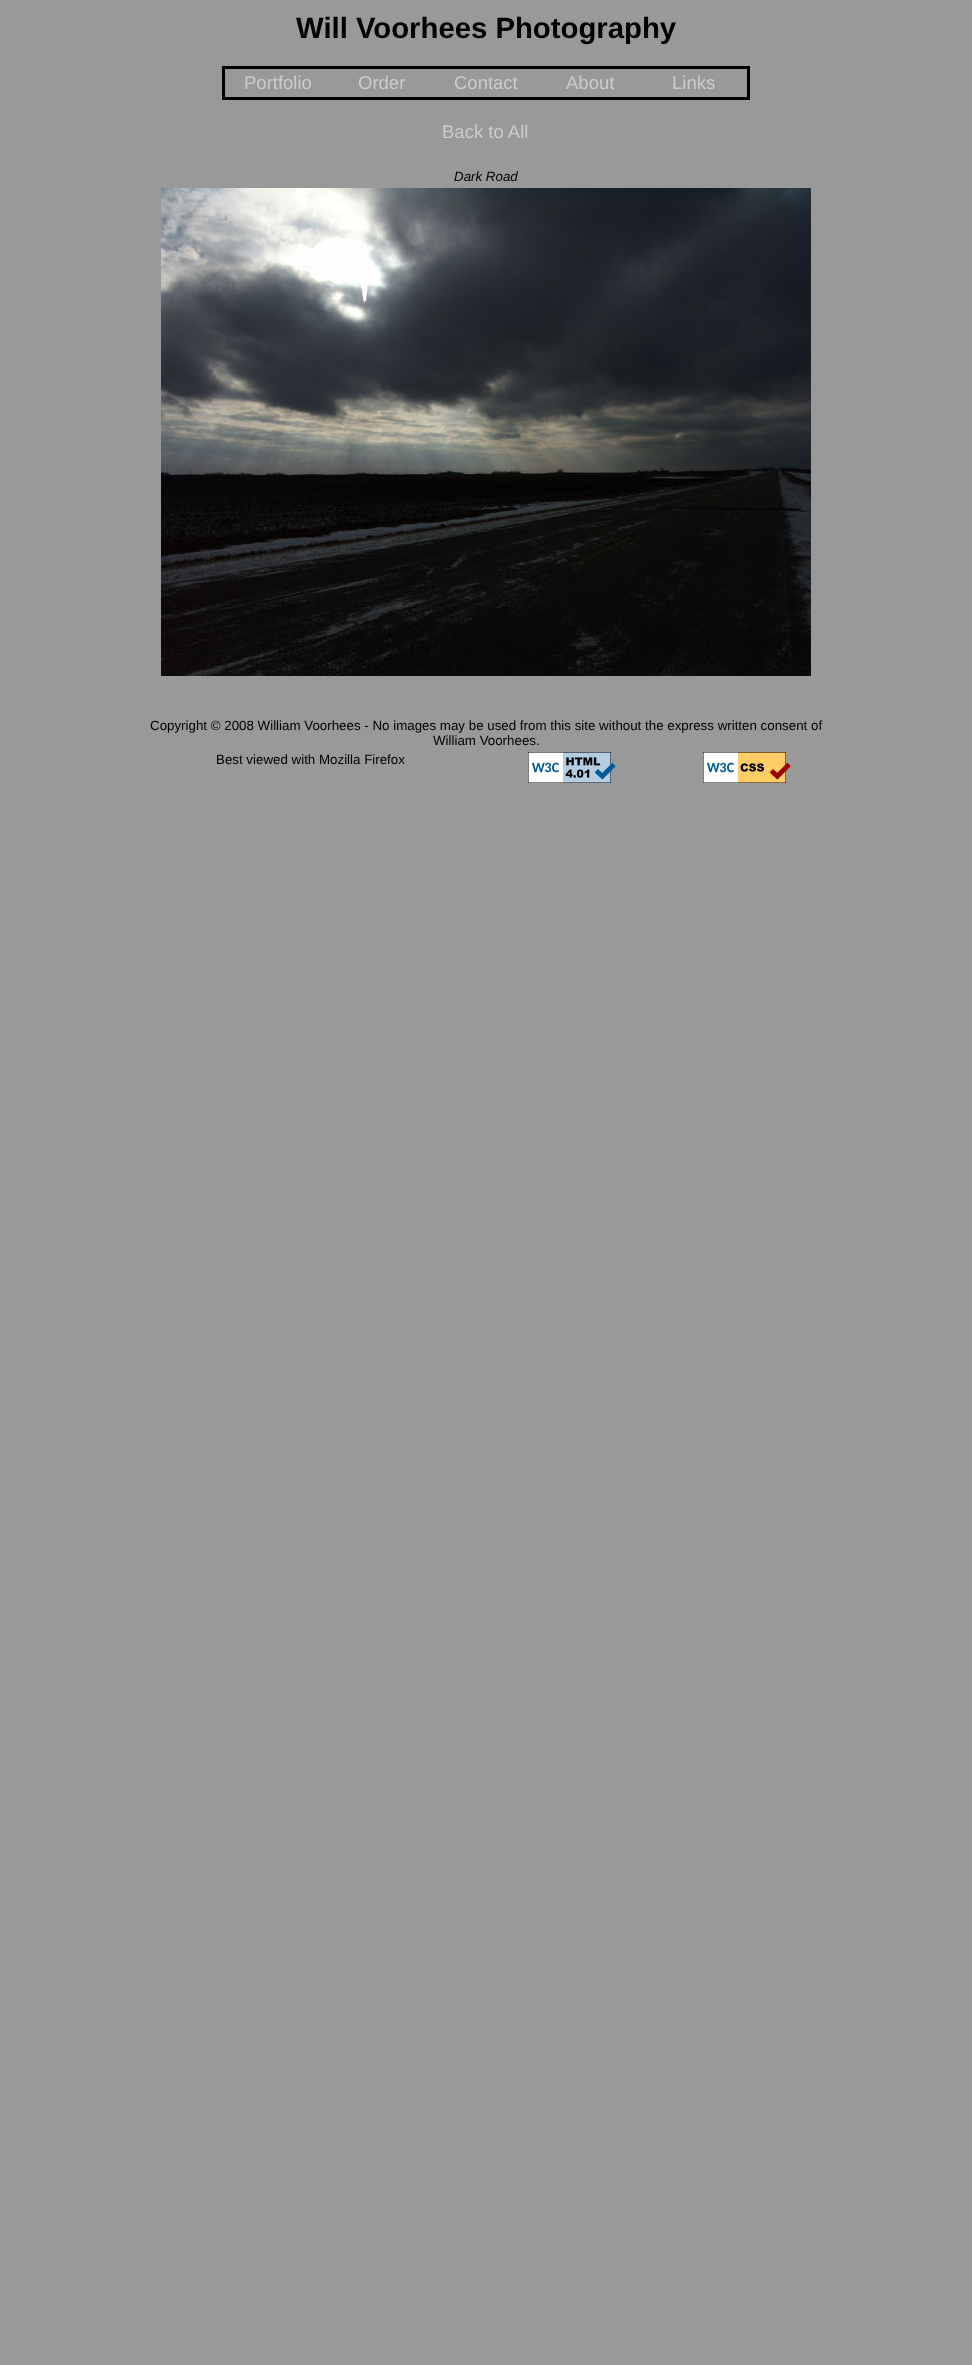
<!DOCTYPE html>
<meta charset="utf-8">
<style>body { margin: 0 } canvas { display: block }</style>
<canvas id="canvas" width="972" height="2365"></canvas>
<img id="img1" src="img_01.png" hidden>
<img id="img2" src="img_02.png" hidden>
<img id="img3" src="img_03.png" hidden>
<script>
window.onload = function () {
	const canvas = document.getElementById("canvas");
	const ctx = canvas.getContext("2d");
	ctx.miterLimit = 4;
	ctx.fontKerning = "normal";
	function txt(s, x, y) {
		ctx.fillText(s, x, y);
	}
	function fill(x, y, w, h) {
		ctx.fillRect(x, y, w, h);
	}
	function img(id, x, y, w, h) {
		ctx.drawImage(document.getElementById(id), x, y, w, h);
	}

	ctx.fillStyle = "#999999";
	fill(0, 0, 972, 2365);
	ctx.strokeStyle = "#000000";
	ctx.lineWidth = 3;
	ctx.strokeRect(223.5, 67.5, 525, 31);
	img("img1", 161, 188, 650, 488);
	img("img2", 528, 752, 88, 31);
	img("img3", 703, 752, 88, 31);
	ctx.font = "bold 29.3px Liberation Sans";
	ctx.fillStyle = "#000000";
	txt("Will Voorhees Photography", 296, 38);
	ctx.font = "18.5px Liberation Sans";
	ctx.fillStyle = "#CCCCCC";
	txt("Portfolio", 244, 89);
	txt("Order", 358, 89);
	txt("Contact", 454, 89);
	txt("About", 566, 89);
	txt("Links", 672, 89);
	txt("Back to All", 442, 138);
	ctx.font = "italic 13.33px Liberation Sans";
	ctx.fillStyle = "#000000";
	txt("Dark Road", 454, 181);
	ctx.font = "13.33px Liberation Sans";
	txt("Copyright © 2008 William Voorhees - No images may be used from this site without the express written consent of", 150, 730);
	txt("William Voorhees.", 433, 745);
	txt("Best viewed with Mozilla Firefox", 216, 764);
};
</script>
